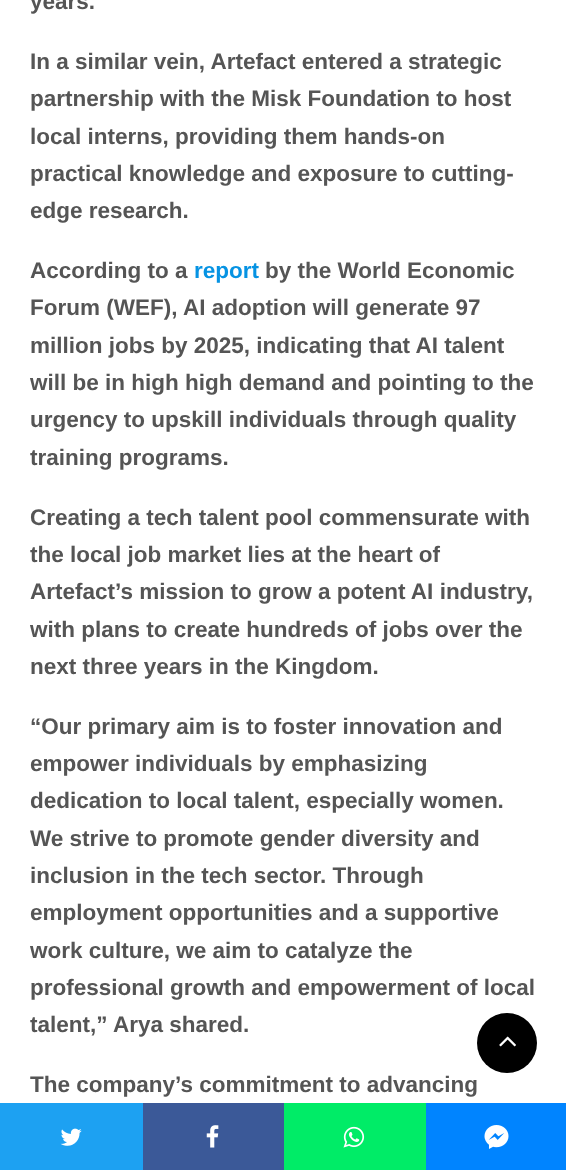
<!DOCTYPE html>
<meta charset="utf-8">
<style>body { margin: 0 } canvas { display: block }</style>
<canvas id="canvas" width="566" height="1170"></canvas>
<img id="img1" src="img_01.png" hidden>
<img id="img2" src="img_02.png" hidden>
<img id="img3" src="img_03.png" hidden>
<img id="img4" src="img_04.png" hidden>
<img id="img5" src="img_05.png" hidden>
<script>
window.onload = function () {
	const canvas = document.getElementById("canvas");
	const ctx = canvas.getContext("2d");
	ctx.miterLimit = 4;
	ctx.fontKerning = "normal";
	function txt(s, x, y) {
		ctx.fillText(s, x, y);
	}
	function fill(x, y, w, h) {
		ctx.fillRect(x, y, w, h);
	}
	function img(id, x, y, w, h) {
		ctx.drawImage(document.getElementById(id), x, y, w, h);
	}

	ctx.fillStyle = "#FFFFFF";
	fill(0, 0, 566, 1170);
	ctx.fillStyle = "#000000";
	ctx.beginPath();
	ctx.arc(507, 1043, 30, 0, Math.PI * 2);
	ctx.fill();
	img("img1", 499, 1036, 17, 11);
	ctx.fillStyle = "#1DA1F2";
	fill(0, 1103, 143, 67);
	img("img2", 60, 1128, 22, 18);
	ctx.fillStyle = "#3B5998";
	fill(143, 1103, 141, 67);
	img("img3", 206, 1125, 13, 23);
	ctx.fillStyle = "#00EC67";
	fill(284, 1103, 142, 67);
	img("img4", 343, 1126, 22, 22);
	ctx.fillStyle = "#0084FF";
	fill(426, 1103, 140, 67);
	img("img5", 484, 1125, 25, 24);
	ctx.font = "bold 22.5px Liberation Sans";
	ctx.fillStyle = "#555555";
	txt("years.", 30, 9);
	txt("In a similar vein, Artefact entered a strategic", 30, 69);
	txt("partnership with the Misk Foundation to host", 30, 106);
	txt("local interns, providing them hands-on", 30, 144);
	txt("practical knowledge and exposure to cutting-", 30, 181);
	txt("edge research.", 30, 218);
	txt("According to a", 30, 278);
	ctx.fillStyle = "#0693E3";
	txt("report", 194, 278);
	ctx.fillStyle = "#555555";
	txt("by the World Economic", 265, 278);
	txt("Forum (WEF), AI adoption will generate 97", 30, 315);
	txt("million jobs by 2025, indicating that AI talent", 30, 353);
	txt("will be in high high demand and pointing to the", 30, 390);
	txt("urgency to upskill individuals through quality", 30, 427);
	txt("training programs.", 30, 465);
	txt("Creating a tech talent pool commensurate with", 30, 525);
	txt("the local job market lies at the heart of", 30, 562);
	txt("Artefact’s mission to grow a potent AI industry,", 30, 599);
	txt("with plans to create hundreds of jobs over the", 30, 637);
	txt("next three years in the Kingdom.", 30, 674);
	txt("“Our primary aim is to foster innovation and", 30, 734);
	txt("empower individuals by emphasizing", 30, 771);
	txt("dedication to local talent, especially women.", 30, 808);
	txt("We strive to promote gender diversity and", 30, 846);
	txt("inclusion in the tech sector. Through", 30, 883);
	txt("employment opportunities and a supportive", 30, 920);
	txt("work culture, we aim to catalyze the", 30, 958);
	txt("professional growth and empowerment of local", 30, 995);
	txt("talent,” Arya shared.", 30, 1032);
	txt("The company’s commitment to advancing", 30, 1092);
};
</script>
